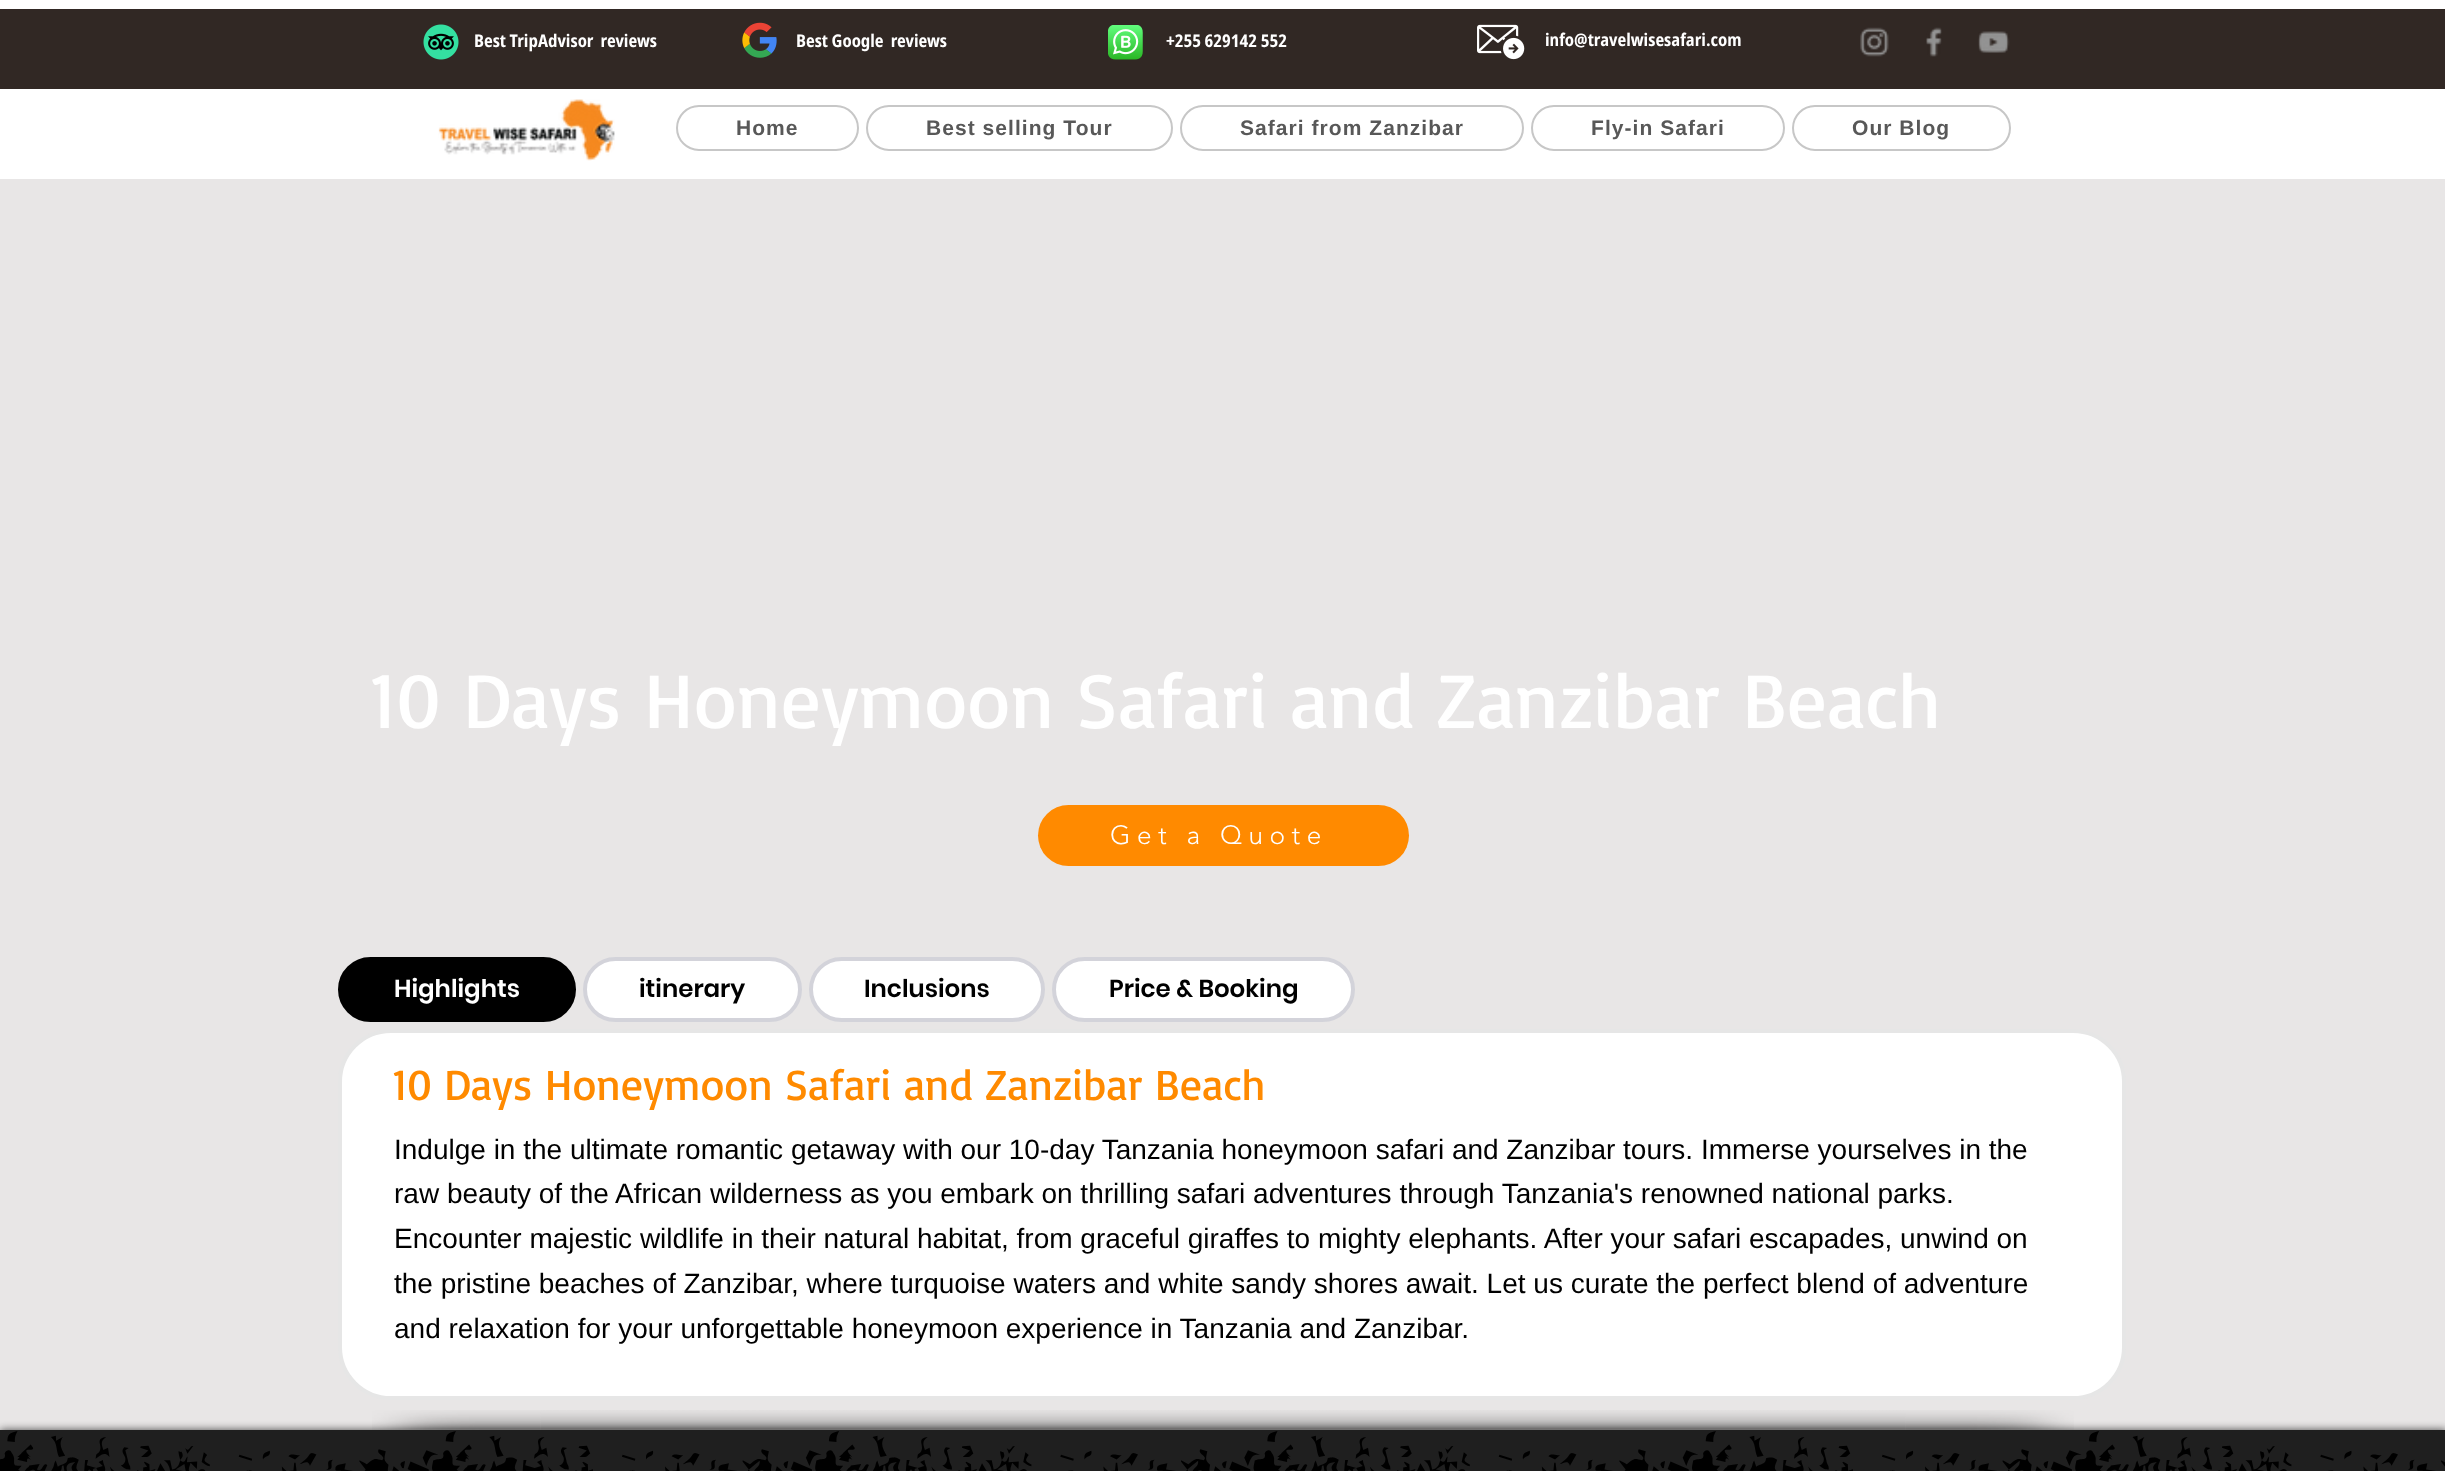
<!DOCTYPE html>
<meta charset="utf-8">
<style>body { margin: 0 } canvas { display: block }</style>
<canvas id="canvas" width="2445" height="1471"></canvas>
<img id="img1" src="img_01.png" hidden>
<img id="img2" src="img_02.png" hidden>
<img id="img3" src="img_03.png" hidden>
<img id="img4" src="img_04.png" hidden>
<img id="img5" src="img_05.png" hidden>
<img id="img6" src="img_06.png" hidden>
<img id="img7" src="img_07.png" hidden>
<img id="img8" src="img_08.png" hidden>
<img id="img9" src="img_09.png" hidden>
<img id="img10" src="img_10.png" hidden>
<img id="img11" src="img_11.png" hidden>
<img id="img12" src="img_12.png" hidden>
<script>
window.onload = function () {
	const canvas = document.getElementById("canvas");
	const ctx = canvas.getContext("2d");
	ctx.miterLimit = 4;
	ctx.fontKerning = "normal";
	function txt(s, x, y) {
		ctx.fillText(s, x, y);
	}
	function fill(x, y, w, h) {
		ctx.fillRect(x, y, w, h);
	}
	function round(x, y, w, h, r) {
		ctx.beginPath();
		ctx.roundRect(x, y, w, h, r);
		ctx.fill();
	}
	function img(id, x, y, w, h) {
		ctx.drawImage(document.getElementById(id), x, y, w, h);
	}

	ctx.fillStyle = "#E8E6E6";
	fill(0, 0, 2445, 1471);
	ctx.fillStyle = "#FFFFFF";
	fill(0, 0, 2445, 179);
	ctx.fillStyle = "#312824";
	fill(0, 9, 2445, 80);
	img("img1", 423, 24, 36, 36);
	img("img2", 742, 22, 35, 36);
	img("img3", 1108, 25, 35, 35);
	img("img4", 1477, 24, 48, 36);
	img("img5", 1860, 27, 29, 30);
	img("img6", 1926, 27, 16, 30);
	img("img7", 1978, 31, 32, 22);
	img("img8", 438, 99, 177, 62);
	ctx.beginPath();
	ctx.roundRect(677, 106, 181, 44, 22);
	ctx.strokeStyle = "#C7C7C7";
	ctx.lineWidth = 2;
	ctx.stroke();
	ctx.beginPath();
	ctx.roundRect(867, 106, 305, 44, 22);
	ctx.stroke();
	ctx.beginPath();
	ctx.roundRect(1181, 106, 342, 44, 22);
	ctx.stroke();
	ctx.beginPath();
	ctx.roundRect(1532, 106, 252, 44, 22);
	ctx.stroke();
	ctx.beginPath();
	ctx.roundRect(1793, 106, 217, 44, 22);
	ctx.stroke();
	ctx.fillStyle = "#FF8A00";
	round(1038, 805, 371, 61, 30.5);
	ctx.fillStyle = "#000000";
	ctx.beginPath();
	ctx.roundRect(340, 959, 234, 61, 30.5);
	ctx.fill();
	ctx.strokeStyle = "#000000";
	ctx.lineWidth = 4;
	ctx.stroke();
	ctx.fillStyle = "#FFFFFF";
	ctx.beginPath();
	ctx.roundRect(585, 959, 215, 61, 30.5);
	ctx.fill();
	ctx.strokeStyle = "#D3D3DA";
	ctx.stroke();
	ctx.beginPath();
	ctx.roundRect(811, 959, 232, 61, 30.5);
	ctx.fill();
	ctx.stroke();
	ctx.beginPath();
	ctx.roundRect(1054, 959, 299, 61, 30.5);
	ctx.fill();
	ctx.stroke();
	ctx.beginPath();
	ctx.roundRect(340, 1031, 1784, 367, 51);
	ctx.fill();
	ctx.strokeStyle = "#E6E6E6";
	ctx.stroke();
	ctx.fillStyle = "rgba(0, 0, 0, 0.7)";
	ctx.filter = "blur(4.5px)";
	ctx.beginPath();
	ctx.rect(0, 1430, 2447, 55);
	ctx.fill();
	ctx.filter = "none";
	img("img9", 372, 1410, 169, 20);
	img("img10", 540, 1410, 1366, 20);
	img("img11", 1905, 1410, 169, 20);
	ctx.fillStyle = "#000000";
	fill(0, 1430, 2445, 41);
	img("img12", 0, 1430, 2445, 41);
	ctx.font = "bold 17.5px Noto Sans";
	ctx.fillStyle = "#FFFFFF";
	txt("Best TripAdvisor  reviews", 474, 47);
	txt("Best Google  reviews", 796, 47);
	txt("+255 629142 552", 1166, 47);
	txt("info@travelwisesafari.com", 1545, 46);
	ctx.letterSpacing = "1.05px";
	ctx.font = "bold 21px Liberation Sans";
	ctx.fillStyle = "#585858";
	txt("Home", 736, 135);
	txt("Best selling Tour", 926, 135);
	txt("Safari from Zanzibar", 1240, 135);
	txt("Fly-in Safari", 1591, 135);
	txt("Our Blog", 1852, 135);
	ctx.letterSpacing = "0px";
	ctx.font = "78.75px Basic";
	ctx.fillStyle = "#FFFFFF";
	txt("10 Days Honeymoon Safari and Zanzibar Beach", 369, 728);
	ctx.letterSpacing = "6.5px";
	ctx.font = "300 26.25px 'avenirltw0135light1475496'";
	txt("Get a Quote", 1110, 844);
	ctx.letterSpacing = "0px";
	ctx.font = "600 24.5px Poppins";
	txt("Highlights", 394, 997);
	ctx.fillStyle = "#000000";
	txt("itinerary", 639, 997);
	txt("Inclusions", 864, 997);
	txt("Price & Booking", 1109, 997);
	ctx.font = "43.75px Basic";
	ctx.fillStyle = "#FF8A00";
	txt("10 Days Honeymoon Safari and Zanzibar Beach", 392, 1100);
	ctx.font = "28px Liberation Sans";
	ctx.fillStyle = "#000000";
	txt("Indulge in the ultimate romantic getaway with our 10-day Tanzania honeymoon safari and Zanzibar tours. Immerse yourselves in the", 394, 1159);
	txt("raw beauty of the African wilderness as you embark on thrilling safari adventures through Tanzania's renowned national parks.", 394, 1203);
	txt("Encounter majestic wildlife in their natural habitat, from graceful giraffes to mighty elephants. After your safari escapades, unwind on", 394, 1248);
	txt("the pristine beaches of Zanzibar, where turquoise waters and white sandy shores await. Let us curate the perfect blend of adventure", 394, 1293);
	txt("and relaxation for your unforgettable honeymoon experience in Tanzania and Zanzibar.", 394, 1338);
};
</script>
